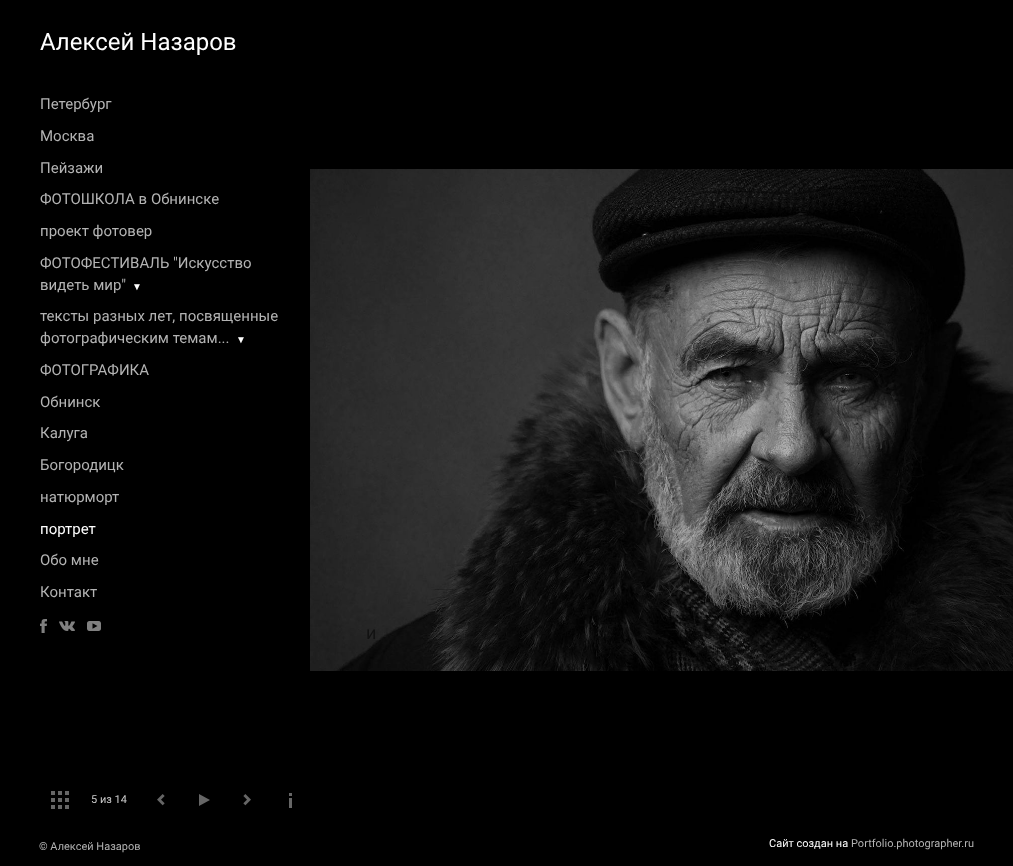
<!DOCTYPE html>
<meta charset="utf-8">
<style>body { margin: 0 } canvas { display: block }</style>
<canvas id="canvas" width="1013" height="866"></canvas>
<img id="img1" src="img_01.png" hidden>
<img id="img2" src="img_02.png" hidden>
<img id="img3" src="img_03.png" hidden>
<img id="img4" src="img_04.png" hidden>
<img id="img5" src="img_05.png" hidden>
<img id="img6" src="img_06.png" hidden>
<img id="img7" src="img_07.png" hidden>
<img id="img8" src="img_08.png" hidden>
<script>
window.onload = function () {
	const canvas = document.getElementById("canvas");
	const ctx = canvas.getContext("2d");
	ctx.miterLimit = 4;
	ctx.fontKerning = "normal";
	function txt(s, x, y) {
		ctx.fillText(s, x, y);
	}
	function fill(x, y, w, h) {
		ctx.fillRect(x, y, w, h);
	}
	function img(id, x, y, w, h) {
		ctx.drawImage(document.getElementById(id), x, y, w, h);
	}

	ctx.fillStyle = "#000000";
	fill(0, 0, 1013, 866);
	img("img1", 40, 619, 7, 14);
	img("img2", 59, 621, 16, 10);
	img("img3", 87, 621, 14, 10);
	img("img4", 51, 791, 18, 18);
	img("img5", 157, 794, 8, 12);
	ctx.fillStyle = "#666666";
	ctx.beginPath();
	ctx.moveTo(210, 800);
	ctx.lineTo(199, 806);
	ctx.lineTo(199, 794);
	ctx.closePath();
	ctx.fill();
	img("img6", 243, 794, 8, 12);
	img("img7", 289, 793, 3, 15);
	img("img8", 310, 169, 703, 502);
	ctx.font = "24px Roboto";
	ctx.fillStyle = "#FFFFFF";
	txt("Алексей Назаров", 40, 50);
	ctx.font = "15px Roboto";
	ctx.fillStyle = "#B3B3B3";
	txt("Петербург", 40, 109);
	txt("Москва", 40, 141);
	txt("Пейзажи", 40, 173);
	txt("ФОТОШКОЛА в Обнинске", 40, 204);
	txt("проект фотовер", 40, 236);
	txt("ФОТОФЕСТИВАЛЬ \"Искусство", 40, 268);
	txt("видеть мир\"", 40, 290);
	ctx.font = "10px Liberation Serif";
	ctx.fillStyle = "#FFFFFF";
	txt("▼", 132, 290);
	ctx.font = "15px Roboto";
	ctx.fillStyle = "#B3B3B3";
	txt("тексты разных лет, посвященные", 40, 321);
	txt("фотографическим темам...", 40, 343);
	ctx.font = "10px Liberation Serif";
	ctx.fillStyle = "#FFFFFF";
	txt("▼", 236, 343);
	ctx.font = "15px Roboto";
	ctx.fillStyle = "#B3B3B3";
	txt("ФОТОГРАФИКА", 40, 375);
	txt("Обнинск", 40, 407);
	txt("Калуга", 40, 438);
	txt("Богородицк", 40, 470);
	txt("натюрморт", 40, 502);
	ctx.fillStyle = "#FFFFFF";
	txt("портрет", 40, 534);
	ctx.fillStyle = "#B3B3B3";
	txt("Обо мне", 40, 565);
	txt("Контакт", 40, 597);
	ctx.font = "11px Roboto";
	ctx.fillStyle = "#CCCCCC";
	txt("5 из 14", 91, 803);
	ctx.font = "18px Roboto";
	ctx.fillStyle = "#121212";
	txt("и", 366, 639);
	ctx.font = "11px Roboto";
	ctx.fillStyle = "#B3B3B3";
	txt("© Алексей Назаров", 39, 850);
	ctx.fillStyle = "#FFFFFF";
	txt("Сайт создан на", 769, 847);
	ctx.fillStyle = "#B3B3B3";
	txt("Portfolio.photographer.ru", 851, 847);
};
</script>
